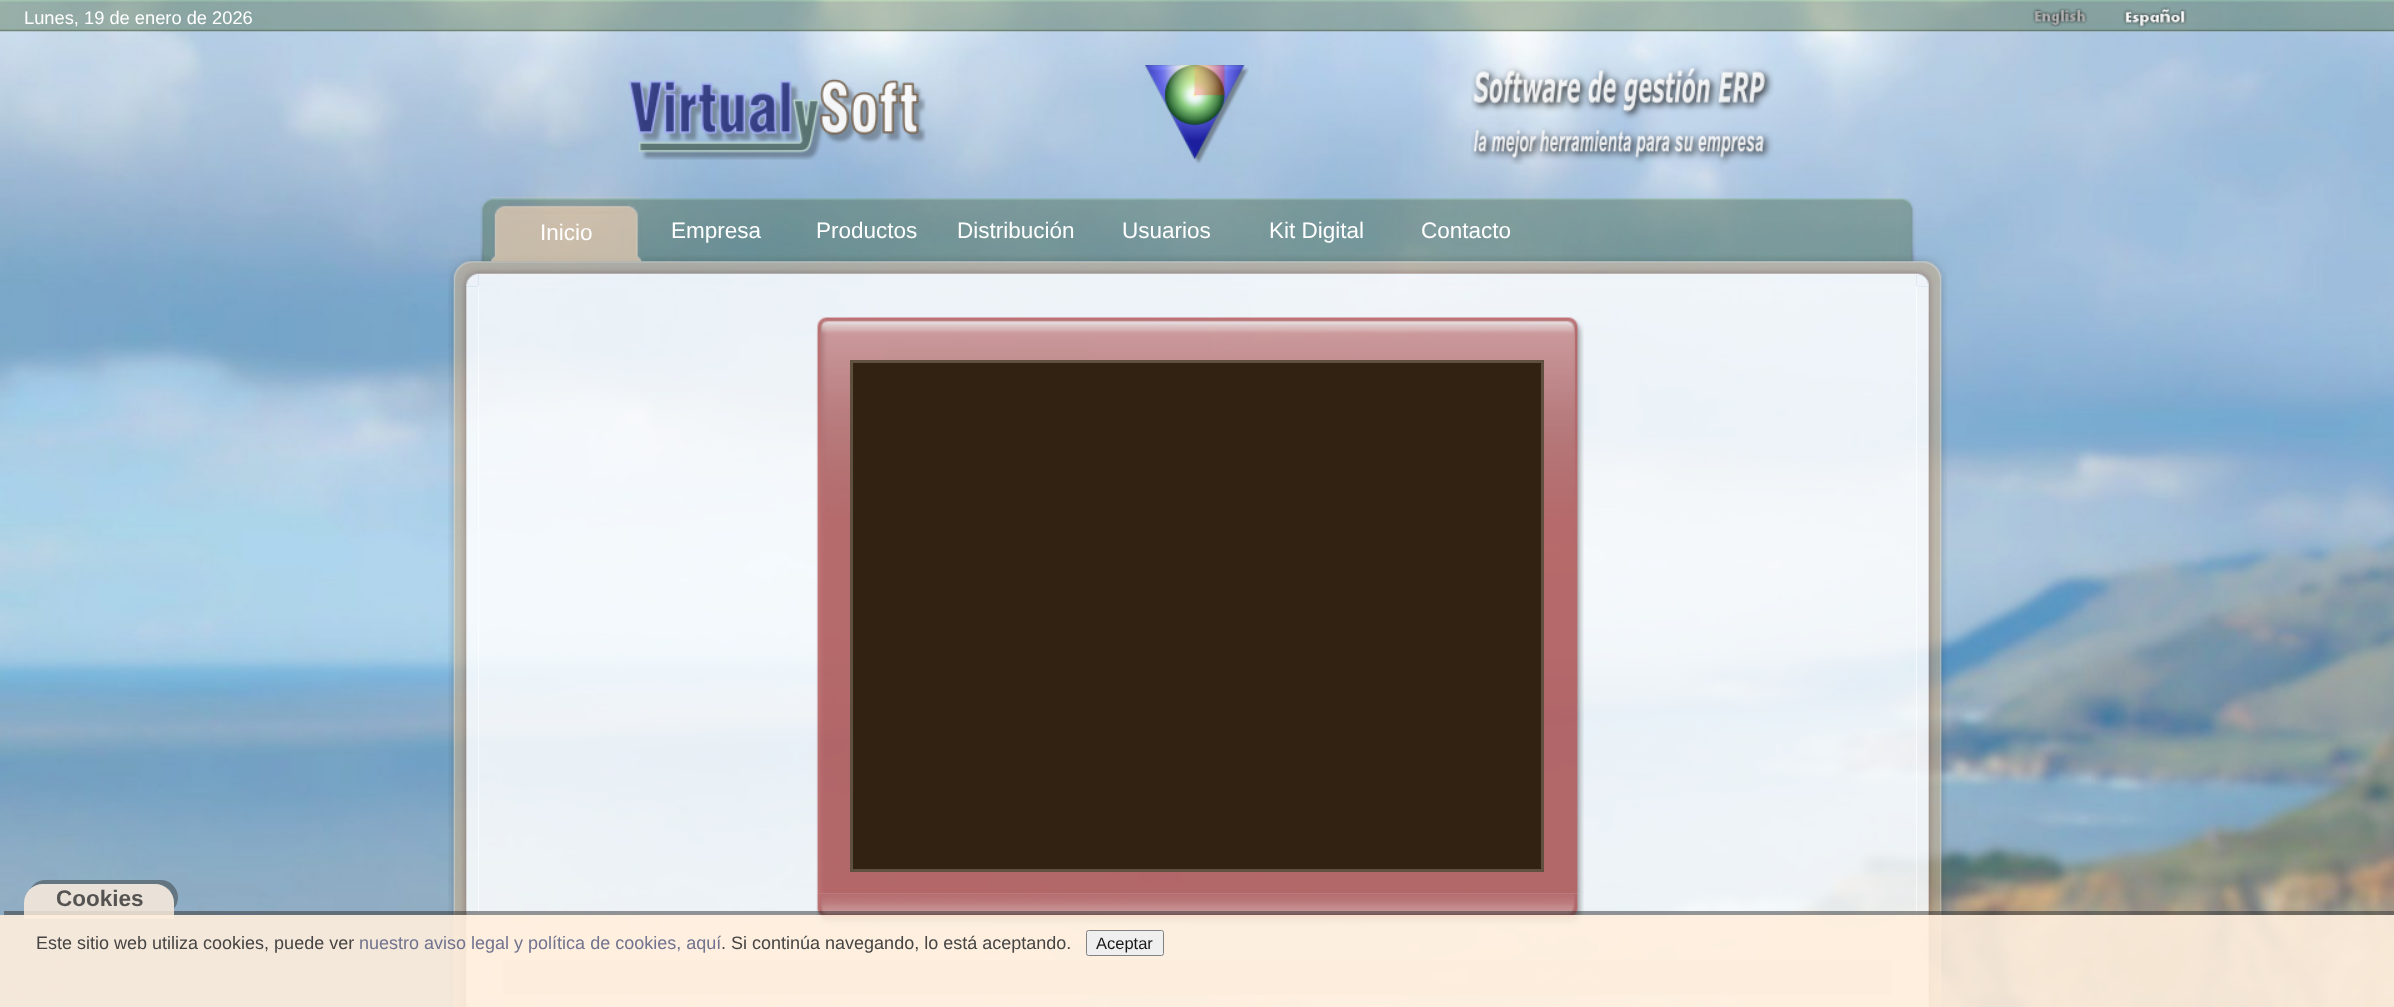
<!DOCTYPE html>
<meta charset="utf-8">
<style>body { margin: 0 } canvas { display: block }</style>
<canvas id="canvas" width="2394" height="1007"></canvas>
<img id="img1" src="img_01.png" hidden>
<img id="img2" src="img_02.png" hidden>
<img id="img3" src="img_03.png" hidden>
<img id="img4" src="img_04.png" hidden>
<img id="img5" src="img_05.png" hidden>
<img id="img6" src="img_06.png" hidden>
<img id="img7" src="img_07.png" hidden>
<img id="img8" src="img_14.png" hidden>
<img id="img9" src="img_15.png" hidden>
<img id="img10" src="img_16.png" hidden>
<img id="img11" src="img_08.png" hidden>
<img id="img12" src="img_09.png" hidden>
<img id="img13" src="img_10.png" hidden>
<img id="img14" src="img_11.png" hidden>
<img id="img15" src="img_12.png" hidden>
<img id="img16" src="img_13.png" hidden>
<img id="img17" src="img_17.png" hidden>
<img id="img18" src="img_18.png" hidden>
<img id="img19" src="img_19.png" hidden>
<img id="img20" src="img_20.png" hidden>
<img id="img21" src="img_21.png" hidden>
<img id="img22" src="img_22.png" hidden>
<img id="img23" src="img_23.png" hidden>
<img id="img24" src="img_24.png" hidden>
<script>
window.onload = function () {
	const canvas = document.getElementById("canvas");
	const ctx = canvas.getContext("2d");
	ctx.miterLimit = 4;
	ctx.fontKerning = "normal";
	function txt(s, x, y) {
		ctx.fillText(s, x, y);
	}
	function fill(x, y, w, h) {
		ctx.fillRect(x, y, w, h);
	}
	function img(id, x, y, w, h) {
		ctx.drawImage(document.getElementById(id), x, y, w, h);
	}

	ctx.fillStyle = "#FFFFFF";
	fill(0, 0, 2394, 1007);
	img("img1", 0, 0, 2394, 1007);
	img("img2", 0, 0, 2394, 32);
	img("img3", 2032, 8, 56, 19);
	img("img4", 2123, 7, 64, 21);
	img("img5", 628, 78, 298, 82);
	img("img6", 1145, 65, 104, 99);
	img("img7", 1471, 65, 303, 100);
	img("img8", 448, 255, 31, 32);
	img("img9", 1916, 255, 31, 32);
	img("img10", 478, 255, 1439, 32);
	img("img11", 480, 198, 18, 64);
	img("img12", 1897, 198, 19, 64);
	img("img13", 497, 198, 1401, 64);
	img("img14", 491, 197, 151, 65);
	img("img15", 491, 197, 151, 65);
	img("img16", 491, 197, 151, 65);
	img("img17", 448, 286, 13, 721);
	img("img18", 1934, 286, 13, 721);
	img("img19", 460, 286, 19, 721);
	img("img20", 1916, 286, 19, 721);
	ctx.fillStyle = "rgba(255, 255, 255, 0.85)";
	fill(478, 286, 1439, 721);
	img("img21", 830, 317, 754, 577);
	img("img22", 816, 317, 14, 577);
	ctx.fillStyle = "#605040";
	fill(850, 360, 694, 3);
	fill(1541, 360, 3, 511);
	fill(850, 869, 694, 3);
	fill(850, 360, 3, 511);
	ctx.fillStyle = "#312212";
	fill(853, 363, 688, 506);
	img("img23", 830, 893, 754, 34);
	img("img24", 816, 893, 14, 33);
	ctx.fillStyle = "rgba(195, 171, 141, 0.3)";
	fill(503, 960, 1389, 35);
	ctx.save();
	ctx.beginPath();
	ctx.rect(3, 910, 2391, 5);
	ctx.clip();
	ctx.fillStyle = "rgba(50, 50, 50, 0.5)";
	ctx.filter = "blur(0.5px)";
	ctx.beginPath();
	ctx.rect(4, 911, 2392, 93);
	ctx.fill();
	ctx.filter = "none";
	ctx.restore();
	ctx.fillStyle = "rgba(255, 238, 221, 0.9)";
	fill(0, 915, 2394, 92);
	ctx.save();
	ctx.beginPath();
	ctx.moveTo(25, 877);
	ctx.lineTo(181, 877);
	ctx.lineTo(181, 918);
	ctx.lineTo(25, 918);
	ctx.closePath();
	ctx.moveTo(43, 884);
	ctx.lineTo(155, 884);
	ctx.bezierCurveTo(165.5, 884, 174, 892.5, 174, 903);
	ctx.lineTo(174, 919);
	ctx.lineTo(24, 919);
	ctx.lineTo(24, 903);
	ctx.bezierCurveTo(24, 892.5, 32.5, 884, 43, 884);
	ctx.closePath();
	ctx.clip("evenodd");
	ctx.fillStyle = "rgba(50, 50, 50, 0.45)";
	ctx.filter = "blur(0.5px)";
	ctx.beginPath();
	ctx.roundRect(28, 880, 150, 35, 19);
	ctx.fill();
	ctx.filter = "none";
	ctx.restore();
	ctx.fillStyle = "rgba(255, 238, 221, 0.81)";
	ctx.beginPath();
	ctx.roundRect(24, 884, 150, 35, [19, 19, 0, 0]);
	ctx.fill();
	ctx.fillStyle = "#EFEFF0";
	ctx.beginPath();
	ctx.roundRect(1086.5, 930.5, 77, 25, 2);
	ctx.fill();
	ctx.strokeStyle = "#828283";
	ctx.stroke();
	ctx.font = "18.3px Liberation Sans";
	ctx.fillStyle = "#FFFFFF";
	txt("Lunes, 19 de enero de 2026", 24, 24);
	ctx.font = "22.5px Liberation Sans";
	txt("Inicio", 540, 240);
	txt("Empresa", 671, 238);
	txt("Productos", 816, 238);
	txt("Distribución", 957, 238);
	txt("Usuarios", 1122, 238);
	txt("Kit Digital", 1269, 238);
	txt("Contacto", 1421, 238);
	ctx.font = "bold 22.5px Liberation Sans";
	ctx.fillStyle = "#565452";
	txt("Cookies", 56, 906);
	ctx.font = "18px Liberation Sans";
	ctx.fillStyle = "#464544";
	txt("Este sitio web utiliza cookies, puede ver", 36, 949);
	ctx.fillStyle = "#71738F";
	txt("nuestro aviso legal y política de cookies, aquí", 359, 949);
	ctx.fillStyle = "#464544";
	txt(". Si continúa navegando, lo está aceptando.", 721, 949);
	ctx.font = "16.5px Liberation Sans";
	ctx.fillStyle = "#181819";
	txt("Aceptar", 1096, 949);
};
</script>
